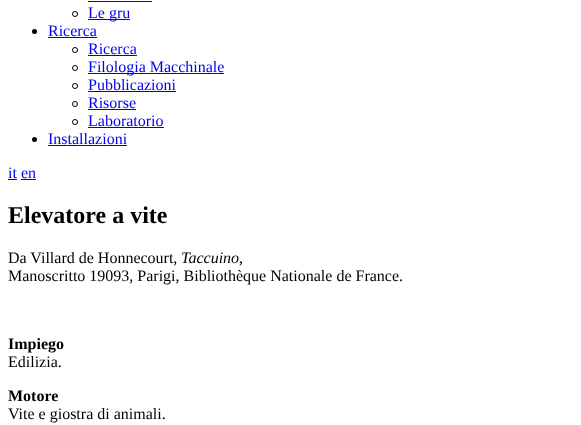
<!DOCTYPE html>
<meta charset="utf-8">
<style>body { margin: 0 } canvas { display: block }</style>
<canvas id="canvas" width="581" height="425"></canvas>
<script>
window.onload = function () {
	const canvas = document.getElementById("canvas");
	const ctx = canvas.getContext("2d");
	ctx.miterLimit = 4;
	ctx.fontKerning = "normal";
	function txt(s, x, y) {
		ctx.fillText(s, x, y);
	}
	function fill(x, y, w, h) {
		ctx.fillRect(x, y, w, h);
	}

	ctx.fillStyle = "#FFFFFF";
	fill(0, 0, 581, 425);
	ctx.fillStyle = "#0000EE";
	fill(88, 1, 64, 1);
	ctx.beginPath();
	ctx.arc(75, 14, 2.5, 0, Math.PI * 2);
	ctx.strokeStyle = "#000000";
	ctx.stroke();
	fill(88, 19, 42, 1);
	ctx.fillStyle = "#000000";
	ctx.beginPath();
	ctx.arc(34.5, 31.5, 2.5, 0, Math.PI * 2);
	ctx.fill();
	ctx.fillStyle = "#0000EE";
	fill(48, 37, 49, 1);
	ctx.beginPath();
	ctx.arc(75, 50, 2.5, 0, Math.PI * 2);
	ctx.stroke();
	fill(88, 55, 49, 1);
	ctx.beginPath();
	ctx.arc(75, 68, 2.5, 0, Math.PI * 2);
	ctx.stroke();
	fill(88, 73, 136, 1);
	ctx.beginPath();
	ctx.arc(75, 86, 2.5, 0, Math.PI * 2);
	ctx.stroke();
	fill(88, 91, 88, 1);
	ctx.beginPath();
	ctx.arc(75, 104, 2.5, 0, Math.PI * 2);
	ctx.stroke();
	fill(88, 109, 48, 1);
	ctx.beginPath();
	ctx.arc(75, 122, 2.5, 0, Math.PI * 2);
	ctx.stroke();
	fill(88, 127, 76, 1);
	ctx.fillStyle = "#000000";
	ctx.beginPath();
	ctx.arc(34.5, 139.5, 2.5, 0, Math.PI * 2);
	ctx.fill();
	ctx.fillStyle = "#0000EE";
	fill(48, 145, 79, 1);
	fill(8, 179, 9, 1);
	fill(21, 179, 15, 1);
	ctx.font = "16px Liberation Serif";
	txt("Le gru", 88, 18);
	txt("Ricerca", 48, 36);
	txt("Ricerca", 88, 54);
	txt("Filologia Macchinale", 88, 72);
	txt("Pubblicazioni", 88, 90);
	txt("Risorse", 88, 108);
	txt("Laboratorio", 88, 126);
	txt("Installazioni", 48, 144);
	txt("it en", 8, 178);
	ctx.font = "bold 24px Liberation Serif";
	ctx.fillStyle = "#000000";
	txt("Elevatore a vite", 8, 223);
	ctx.font = "16px Liberation Serif";
	txt("Da Villard de Honnecourt,", 8, 263);
	ctx.font = "italic 16px Liberation Serif";
	txt("Taccuino", 181, 263);
	ctx.font = "16px Liberation Serif";
	txt(",", 239, 263);
	txt("Manoscritto 19093, Parigi, Bibliothèque Nationale de France.", 8, 281);
	ctx.font = "bold 16px Liberation Serif";
	txt("Impiego", 8, 349);
	ctx.font = "16px Liberation Serif";
	txt("Edilizia.", 8, 367);
	ctx.font = "bold 16px Liberation Serif";
	txt("Motore", 8, 401);
	ctx.font = "16px Liberation Serif";
	txt("Vite e giostra di animali.", 8, 419);
};
</script>
